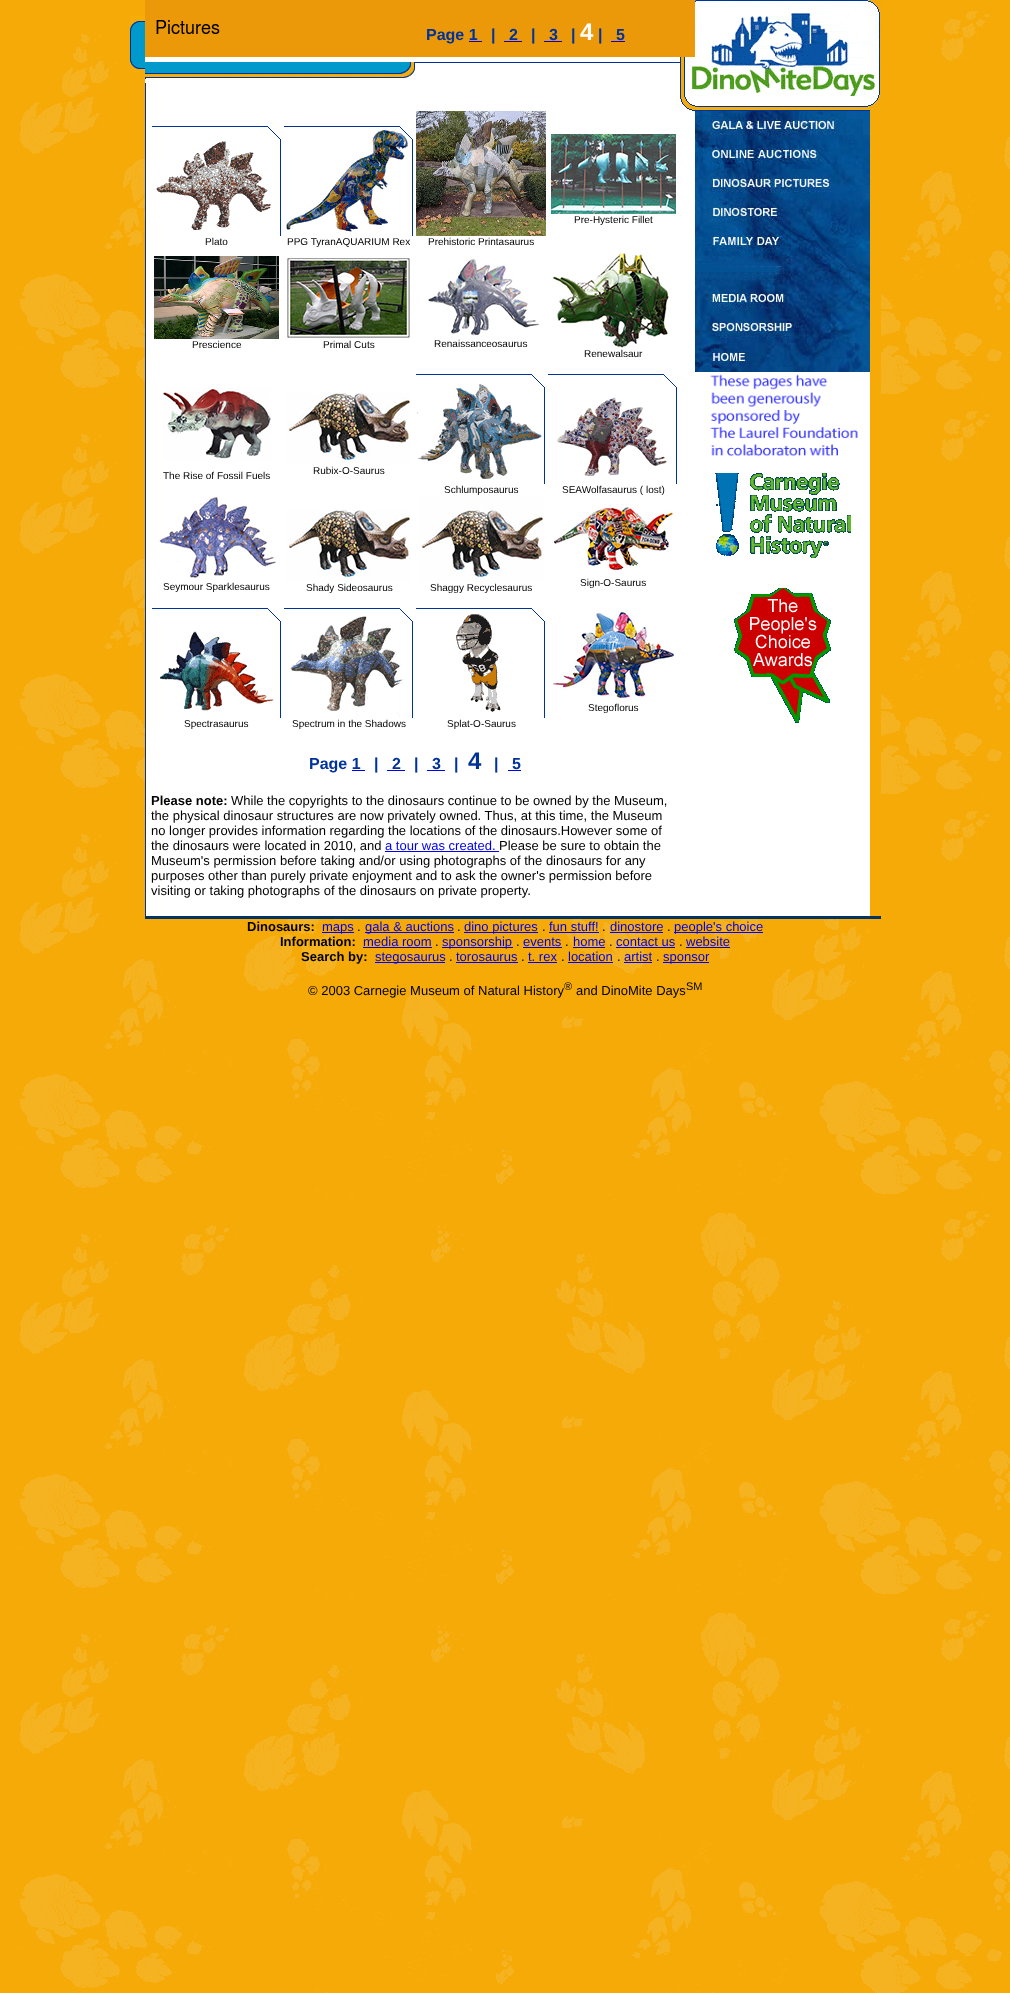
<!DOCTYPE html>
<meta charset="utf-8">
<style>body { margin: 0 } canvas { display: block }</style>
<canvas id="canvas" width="1010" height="1993"></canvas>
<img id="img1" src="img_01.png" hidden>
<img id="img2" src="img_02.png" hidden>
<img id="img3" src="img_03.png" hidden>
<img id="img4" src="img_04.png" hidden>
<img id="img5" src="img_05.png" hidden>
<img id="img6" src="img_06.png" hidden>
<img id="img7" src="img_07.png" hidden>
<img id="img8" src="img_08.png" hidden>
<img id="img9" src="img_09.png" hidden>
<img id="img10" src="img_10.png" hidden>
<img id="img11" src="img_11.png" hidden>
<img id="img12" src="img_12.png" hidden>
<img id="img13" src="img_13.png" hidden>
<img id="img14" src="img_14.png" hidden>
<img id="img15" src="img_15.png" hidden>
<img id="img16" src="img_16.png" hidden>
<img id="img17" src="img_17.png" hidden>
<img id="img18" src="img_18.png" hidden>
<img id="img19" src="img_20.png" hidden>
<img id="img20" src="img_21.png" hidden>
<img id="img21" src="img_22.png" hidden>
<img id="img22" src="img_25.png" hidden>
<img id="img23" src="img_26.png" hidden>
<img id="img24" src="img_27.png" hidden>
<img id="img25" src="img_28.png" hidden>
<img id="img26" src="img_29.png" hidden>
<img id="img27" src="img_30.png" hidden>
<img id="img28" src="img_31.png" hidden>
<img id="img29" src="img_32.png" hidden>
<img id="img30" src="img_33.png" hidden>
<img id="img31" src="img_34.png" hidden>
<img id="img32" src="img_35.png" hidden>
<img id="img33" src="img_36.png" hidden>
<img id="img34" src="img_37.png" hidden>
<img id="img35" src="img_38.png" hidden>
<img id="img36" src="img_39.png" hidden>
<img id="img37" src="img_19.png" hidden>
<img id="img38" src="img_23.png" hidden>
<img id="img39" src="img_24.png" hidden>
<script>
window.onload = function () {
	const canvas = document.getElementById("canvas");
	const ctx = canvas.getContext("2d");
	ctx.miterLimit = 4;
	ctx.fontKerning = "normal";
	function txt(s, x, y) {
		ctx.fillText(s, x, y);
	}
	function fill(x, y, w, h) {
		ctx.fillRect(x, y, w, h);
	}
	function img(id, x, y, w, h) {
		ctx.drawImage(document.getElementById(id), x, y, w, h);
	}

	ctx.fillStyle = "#FFFFFF";
	fill(0, 0, 1010, 1993);
	img("img1", 0, 0, 1010, 1993);
	img("img2", 130, 16, 15, 56);
	fill(695, 372, 175, 544);
	fill(145, 57, 550, 859);
	img("img3", 145, 0, 550, 57);
	ctx.fillStyle = "#0000EE";
	fill(504, 41, 18, 1);
	fill(544, 41, 18, 1);
	fill(611, 41, 14, 1);
	img("img4", 145, 62, 535, 17);
	img("img5", 680, 57, 15, 54);
	ctx.fillStyle = "#003399";
	fill(145, 83, 1, 833);
	img("img6", 551, 134, 125, 80);
	img("img7", 152, 126, 129, 110);
	img("img8", 284, 126, 129, 110);
	img("img9", 416, 111, 130, 125);
	img("img10", 154, 256, 125, 83);
	img("img11", 286, 258, 124, 81);
	img("img12", 428, 258, 112, 78);
	img("img13", 551, 250, 120, 98);
	img("img14", 163, 387, 108, 74);
	img("img15", 286, 393, 125, 72);
	img("img16", 416, 374, 129, 110);
	img("img17", 548, 374, 129, 110);
	img("img18", 158, 496, 118, 82);
	img("img15", 286, 510, 125, 72);
	img("img19", 554, 507, 119, 63);
	img("img20", 553, 610, 121, 90);
	img("img21", 152, 608, 129, 110);
	ctx.fillStyle = "#0000EE";
	fill(387, 770, 18, 1);
	fill(427, 770, 18, 1);
	fill(508, 770, 13, 1);
	fill(385, 851, 114, 1);
	img("img22", 695, 0, 175, 111);
	img("img23", 695, 111, 175, 29);
	img("img24", 695, 140, 175, 29);
	img("img25", 695, 169, 175, 29);
	img("img26", 695, 198, 175, 29);
	img("img27", 695, 227, 175, 29);
	img("img28", 695, 256, 175, 29);
	img("img29", 695, 285, 175, 29);
	img("img30", 695, 314, 175, 29);
	img("img31", 695, 343, 175, 29);
	img("img32", 710, 374, 148, 83);
	img("img33", 715, 473, 136, 85);
	img("img34", 734, 588, 97, 135);
	img("img35", 870, 111, 11, 805);
	img("img36", 870, 0, 11, 111);
	ctx.fillStyle = "#003366";
	fill(145, 916, 736, 3);
	ctx.fillStyle = "#0000EE";
	fill(322, 932, 32, 1);
	fill(365, 932, 89, 1);
	fill(464, 932, 74, 1);
	fill(549, 932, 50, 1);
	fill(610, 932, 53, 1);
	fill(674, 932, 89, 1);
	fill(363, 947, 69, 1);
	fill(442, 947, 71, 1);
	fill(523, 947, 39, 1);
	fill(573, 947, 32, 1);
	fill(616, 947, 59, 1);
	fill(686, 947, 44, 1);
	fill(375, 962, 70, 1);
	fill(456, 962, 62, 1);
	fill(528, 962, 29, 1);
	fill(568, 962, 45, 1);
	fill(624, 962, 28, 1);
	fill(663, 962, 46, 1);
	ctx.font = "bold 16px Liberation Sans";
	ctx.fillStyle = "#003399";
	txt("Page 1", 426, 40);
	ctx.fillStyle = "#0000EE";
	fill(469, 41, 13, 1);
	ctx.fillStyle = "#003399";
	txt("|", 491, 40);
	txt("2", 509, 40);
	txt("|", 531, 40);
	txt("3", 549, 40);
	txt("|", 571, 40);
	ctx.font = "bold 24px Liberation Sans";
	ctx.fillStyle = "#FFFFFF";
	txt("4", 580, 40);
	ctx.font = "bold 16px Liberation Sans";
	ctx.fillStyle = "#003399";
	txt("|", 598, 40);
	txt("5", 616, 40);
	ctx.font = "10px Liberation Sans";
	ctx.fillStyle = "#000000";
	txt("Pre-Hysteric Fillet", 574, 223);
	txt("Plato", 205, 245);
	txt("PPG TyranAQUARIUM Rex", 287, 245);
	txt("Prehistoric Printasaurus", 428, 245);
	txt("Prescience", 192, 348);
	txt("Primal Cuts", 323, 348);
	txt("Renaissanceosaurus", 434, 347);
	txt("Renewalsaur", 584, 357);
	txt("The Rise of Fossil Fuels", 163, 479);
	txt("Rubix-O-Saurus", 313, 474);
	txt("Schlumposaurus", 444, 493);
	txt("SEAWolfasaurus ( lost)", 562, 493);
	txt("Seymour Sparklesaurus", 163, 590);
	txt("Shady Sideosaurus", 306, 591);
	img("img37", 419, 495, 125, 87);
	txt("Shaggy Recyclesaurus", 430, 591);
	txt("Sign-O-Saurus", 580, 586);
	txt("Stegoflorus", 588, 711);
	txt("Spectrasaurus", 184, 727);
	img("img38", 284, 593, 129, 125);
	txt("Spectrum in the Shadows", 292, 727);
	img("img39", 416, 593, 129, 125);
	txt("Splat-O-Saurus", 447, 727);
	ctx.font = "bold 16px Liberation Sans";
	ctx.fillStyle = "#003399";
	txt("Page 1", 309, 769);
	ctx.fillStyle = "#0000EE";
	fill(352, 770, 13, 1);
	ctx.fillStyle = "#003399";
	txt("|", 374, 769);
	txt("2", 392, 769);
	txt("|", 414, 769);
	txt("3", 432, 769);
	txt("|", 454, 769);
	ctx.font = "bold 24px Liberation Sans";
	txt("4", 468, 769);
	ctx.font = "bold 16px Liberation Sans";
	txt("|", 494, 769);
	txt("5", 512, 769);
	ctx.font = "bold 13px Liberation Sans";
	ctx.fillStyle = "#000000";
	txt("Please note:", 151, 805);
	ctx.font = "13px Liberation Sans";
	txt("While the copyrights to the dinosaurs continue to be owned by the Museum,", 231, 805);
	txt("the physical dinosaur structures are now privately owned. Thus, at this time, the Museum", 151, 820);
	txt("no longer provides information regarding the locations of the dinosaurs.However some of", 151, 835);
	txt("the dinosaurs were located in 2010, and", 151, 850);
	ctx.fillStyle = "#0000EE";
	txt("a tour was created.", 385, 850);
	ctx.fillStyle = "#000000";
	txt("Please be sure to obtain the", 499, 850);
	txt("Museum's permission before taking and/or using photographs of the dinosaurs for any", 151, 865);
	txt("purposes other than purely private enjoyment and to ask the owner's permission before", 151, 880);
	txt("visiting or taking photographs of the dinosaurs on private property.", 151, 895);
	ctx.font = "bold 13px Liberation Sans";
	txt("Dinosaurs:", 247, 931);
	ctx.font = "13px Liberation Sans";
	ctx.fillStyle = "#0000EE";
	txt("maps", 322, 931);
	ctx.fillStyle = "#000000";
	txt(".", 357, 931);
	ctx.fillStyle = "#0000EE";
	txt("gala & auctions", 365, 931);
	ctx.fillStyle = "#000000";
	txt(".", 457, 931);
	ctx.fillStyle = "#0000EE";
	txt("dino pictures", 464, 931);
	ctx.fillStyle = "#000000";
	txt(".", 542, 931);
	ctx.fillStyle = "#0000EE";
	txt("fun stuff!", 549, 931);
	ctx.fillStyle = "#000000";
	txt(".", 602, 931);
	ctx.fillStyle = "#0000EE";
	txt("dinostore", 610, 931);
	ctx.fillStyle = "#000000";
	txt(".", 667, 931);
	ctx.fillStyle = "#0000EE";
	txt("people's choice", 674, 931);
	ctx.font = "bold 13px Liberation Sans";
	ctx.fillStyle = "#000000";
	txt("Information:", 280, 946);
	ctx.font = "13px Liberation Sans";
	ctx.fillStyle = "#0000EE";
	txt("media room", 363, 946);
	ctx.fillStyle = "#000000";
	txt(".", 435, 946);
	ctx.fillStyle = "#0000EE";
	txt("sponsorship", 442, 946);
	ctx.fillStyle = "#000000";
	txt(".", 516, 946);
	ctx.fillStyle = "#0000EE";
	txt("events", 523, 946);
	ctx.fillStyle = "#000000";
	txt(".", 565, 946);
	ctx.fillStyle = "#0000EE";
	txt("home", 573, 946);
	ctx.fillStyle = "#000000";
	txt(".", 609, 946);
	ctx.fillStyle = "#0000EE";
	txt("contact us", 616, 946);
	ctx.fillStyle = "#000000";
	txt(".", 679, 946);
	ctx.fillStyle = "#0000EE";
	txt("website", 686, 946);
	ctx.font = "bold 13px Liberation Sans";
	ctx.fillStyle = "#000000";
	txt("Search by:", 301, 961);
	ctx.font = "13px Liberation Sans";
	ctx.fillStyle = "#0000EE";
	txt("stegosaurus", 375, 961);
	ctx.fillStyle = "#000000";
	txt(".", 449, 961);
	ctx.fillStyle = "#0000EE";
	txt("torosaurus", 456, 961);
	ctx.fillStyle = "#000000";
	txt(".", 521, 961);
	ctx.fillStyle = "#0000EE";
	txt("t. rex", 528, 961);
	ctx.fillStyle = "#000000";
	txt(".", 561, 961);
	ctx.fillStyle = "#0000EE";
	txt("location", 568, 961);
	ctx.fillStyle = "#000000";
	txt(".", 617, 961);
	ctx.fillStyle = "#0000EE";
	txt("artist", 624, 961);
	ctx.fillStyle = "#000000";
	txt(".", 656, 961);
	ctx.fillStyle = "#0000EE";
	txt("sponsor", 663, 961);
	ctx.fillStyle = "#000000";
	txt("© 2003 Carnegie Museum of Natural History", 308, 995);
	ctx.font = "11px Liberation Sans";
	txt("®", 564, 990);
	ctx.font = "13px Liberation Sans";
	txt("and DinoMite Days", 576, 995);
	ctx.font = "11px Liberation Sans";
	txt("SM", 686, 990);
};
</script>
